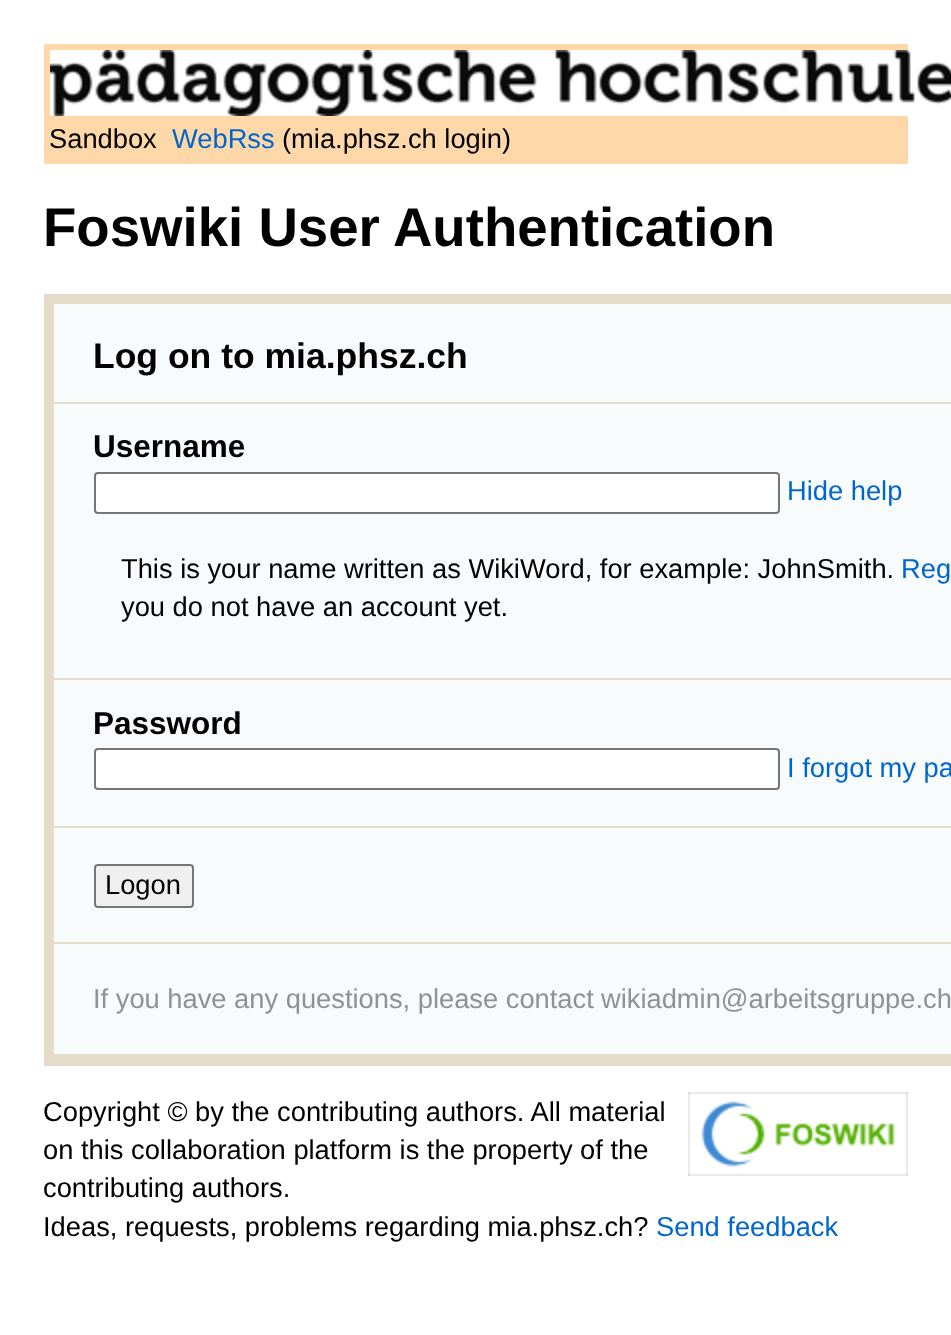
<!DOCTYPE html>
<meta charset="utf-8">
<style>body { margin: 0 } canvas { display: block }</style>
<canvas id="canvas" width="951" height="1335"></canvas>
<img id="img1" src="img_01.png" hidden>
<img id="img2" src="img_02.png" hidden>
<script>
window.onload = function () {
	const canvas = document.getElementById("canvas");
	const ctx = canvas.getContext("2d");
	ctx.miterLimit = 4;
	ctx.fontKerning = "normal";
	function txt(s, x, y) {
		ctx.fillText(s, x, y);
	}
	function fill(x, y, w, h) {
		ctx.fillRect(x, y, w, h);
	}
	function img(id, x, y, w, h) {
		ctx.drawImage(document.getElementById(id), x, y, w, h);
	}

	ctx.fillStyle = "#FFFFFF";
	fill(0, 0, 951, 1335);
	ctx.fillStyle = "#FFD8AA";
	fill(44, 44, 864, 120);
	img("img1", 50, 50, 901, 66);
	ctx.fillStyle = "#F8FBFC";
	fill(54, 304, 897, 750);
	ctx.strokeStyle = "#E2DCC8";
	ctx.lineWidth = 10;
	ctx.strokeRect(49, 299, 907, 762);
	ctx.fillStyle = "#E2DCC8";
	fill(54, 402, 897, 2);
	fill(54, 678, 897, 2);
	ctx.fillStyle = "#FFFFFF";
	ctx.beginPath();
	ctx.roundRect(95, 473, 684, 40, 3);
	ctx.fill();
	ctx.strokeStyle = "#767676";
	ctx.lineWidth = 2;
	ctx.stroke();
	ctx.fillStyle = "#E2DCC8";
	fill(54, 826, 897, 2);
	ctx.fillStyle = "#FFFFFF";
	ctx.beginPath();
	ctx.roundRect(95, 749, 684, 40, 3);
	ctx.fill();
	ctx.stroke();
	ctx.fillStyle = "#E2DCC8";
	fill(54, 942, 897, 2);
	ctx.fillStyle = "#EFEFEF";
	ctx.beginPath();
	ctx.roundRect(95, 865, 98, 42, 3);
	ctx.fill();
	ctx.stroke();
	ctx.fillStyle = "#E2DCC8";
	fill(54, 1054, 897, 2);
	img("img2", 688, 1092, 220, 84);
	ctx.font = "27.3px Liberation Sans";
	ctx.fillStyle = "#000000";
	txt("Sandbox", 49, 148);
	ctx.fillStyle = "#0066CC";
	txt("WebRss", 172, 148);
	ctx.fillStyle = "#000000";
	txt("(mia.phsz.ch login)", 282, 148);
	ctx.font = "bold 54.6px Liberation Sans";
	txt("Foswiki User Authentication", 43, 246);
	ctx.font = "bold 35.5px Liberation Sans";
	txt("Log on to mia.phsz.ch", 93, 368);
	ctx.font = "bold 31.5px Liberation Sans";
	txt("Username", 93, 457);
	ctx.font = "27.3px Liberation Sans";
	ctx.fillStyle = "#0066CC";
	txt("Hide help", 787, 500);
	ctx.fillStyle = "#000000";
	txt("This is your name written as WikiWord, for example: JohnSmith.", 121, 578);
	ctx.fillStyle = "#0066CC";
	txt("Reg", 901, 578);
	ctx.fillStyle = "#000000";
	txt("you do not have an account yet.", 121, 616);
	ctx.font = "bold 31.5px Liberation Sans";
	txt("Password", 93, 734);
	ctx.font = "27.3px Liberation Sans";
	ctx.fillStyle = "#0066CC";
	txt("I forgot my pa", 787, 777);
	ctx.fillStyle = "#000000";
	txt("Logon", 105, 894);
	ctx.fillStyle = "#8E9195";
	txt("If you have any questions, please contact", 93, 1008);
	txt("wikiadmin@arbeitsgruppe.ch", 601, 1008);
	ctx.fillStyle = "#000000";
	txt("Copyright © by the contributing authors. All material", 43, 1121);
	txt("on this collaboration platform is the property of the", 43, 1159);
	txt("contributing authors.", 43, 1197);
	txt("Ideas, requests, problems regarding mia.phsz.ch?", 43, 1236);
	ctx.fillStyle = "#0066CC";
	txt("Send feedback", 656, 1236);
};
</script>
